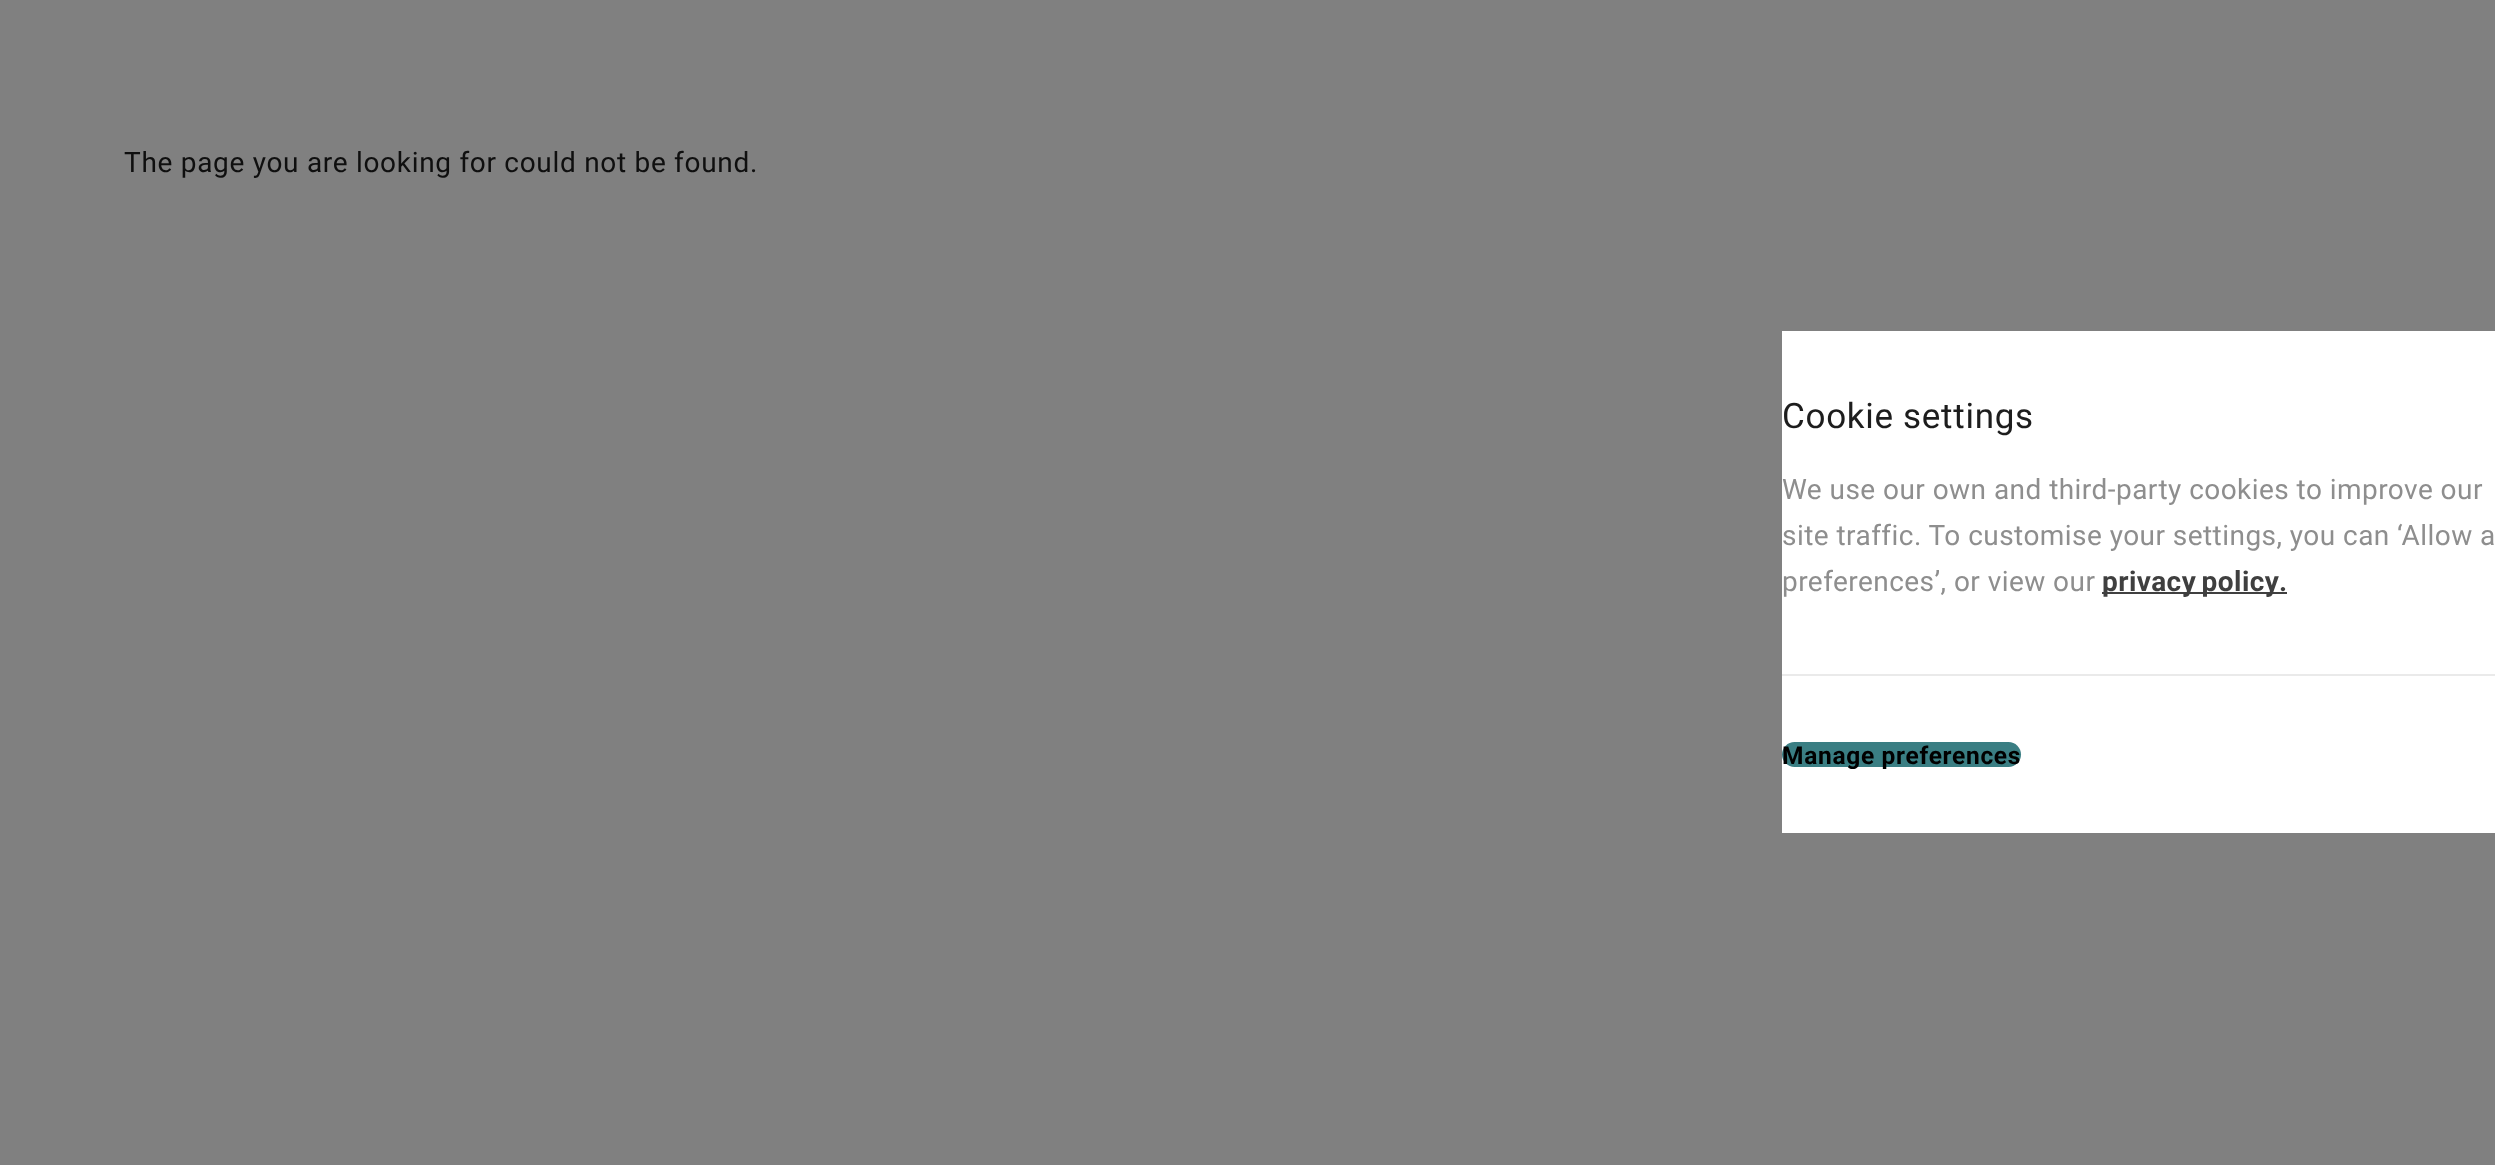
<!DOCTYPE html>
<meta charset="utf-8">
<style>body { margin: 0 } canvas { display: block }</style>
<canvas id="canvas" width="2495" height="1165"></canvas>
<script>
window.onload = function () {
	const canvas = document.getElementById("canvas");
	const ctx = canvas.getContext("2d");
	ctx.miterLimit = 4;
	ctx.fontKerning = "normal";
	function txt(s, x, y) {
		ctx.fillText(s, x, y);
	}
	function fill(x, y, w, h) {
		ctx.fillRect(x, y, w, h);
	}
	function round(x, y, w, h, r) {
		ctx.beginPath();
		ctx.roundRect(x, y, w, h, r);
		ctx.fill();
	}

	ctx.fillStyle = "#808080";
	fill(0, 0, 2495, 1165);
	ctx.fillStyle = "#FFFFFF";
	fill(1782, 331, 713, 502);
	ctx.fillStyle = "#EAEAEA";
	fill(1782, 674, 713, 2);
	ctx.fillStyle = "#404040";
	fill(2102, 592, 185, 2);
	ctx.fillStyle = "#3A7E83";
	round(1782, 742, 239, 25, 12.5);
	ctx.letterSpacing = "0.7px";
	ctx.font = "28px Roboto";
	ctx.fillStyle = "#0F0F0F";
	txt("The page you are looking for could not be found.", 124, 172);
	ctx.font = "35px Roboto";
	ctx.fillStyle = "#1D1D1D";
	txt("Cookie settings", 1782, 428);
	ctx.letterSpacing = "0.45px";
	ctx.font = "28px Roboto";
	ctx.fillStyle = "#8E8E8E";
	txt("We use our own and third-party cookies to improve our", 1782, 499);
	txt("site traffic. To customise your settings, you can ‘Allow a", 1782, 545);
	txt("preferences’, or view our", 1782, 591);
	ctx.wordSpacing = "-2px";
	ctx.font = "bold 28px Roboto";
	ctx.fillStyle = "#3F3F3F";
	txt("privacy policy", 2102, 591);
	ctx.wordSpacing = "0px";
	txt(".", 2279, 591);
	ctx.letterSpacing = "0.7px";
	ctx.font = "bold 24.5px Roboto";
	ctx.fillStyle = "#000000";
	txt("Manage preferences", 1782, 764);
};
</script>
